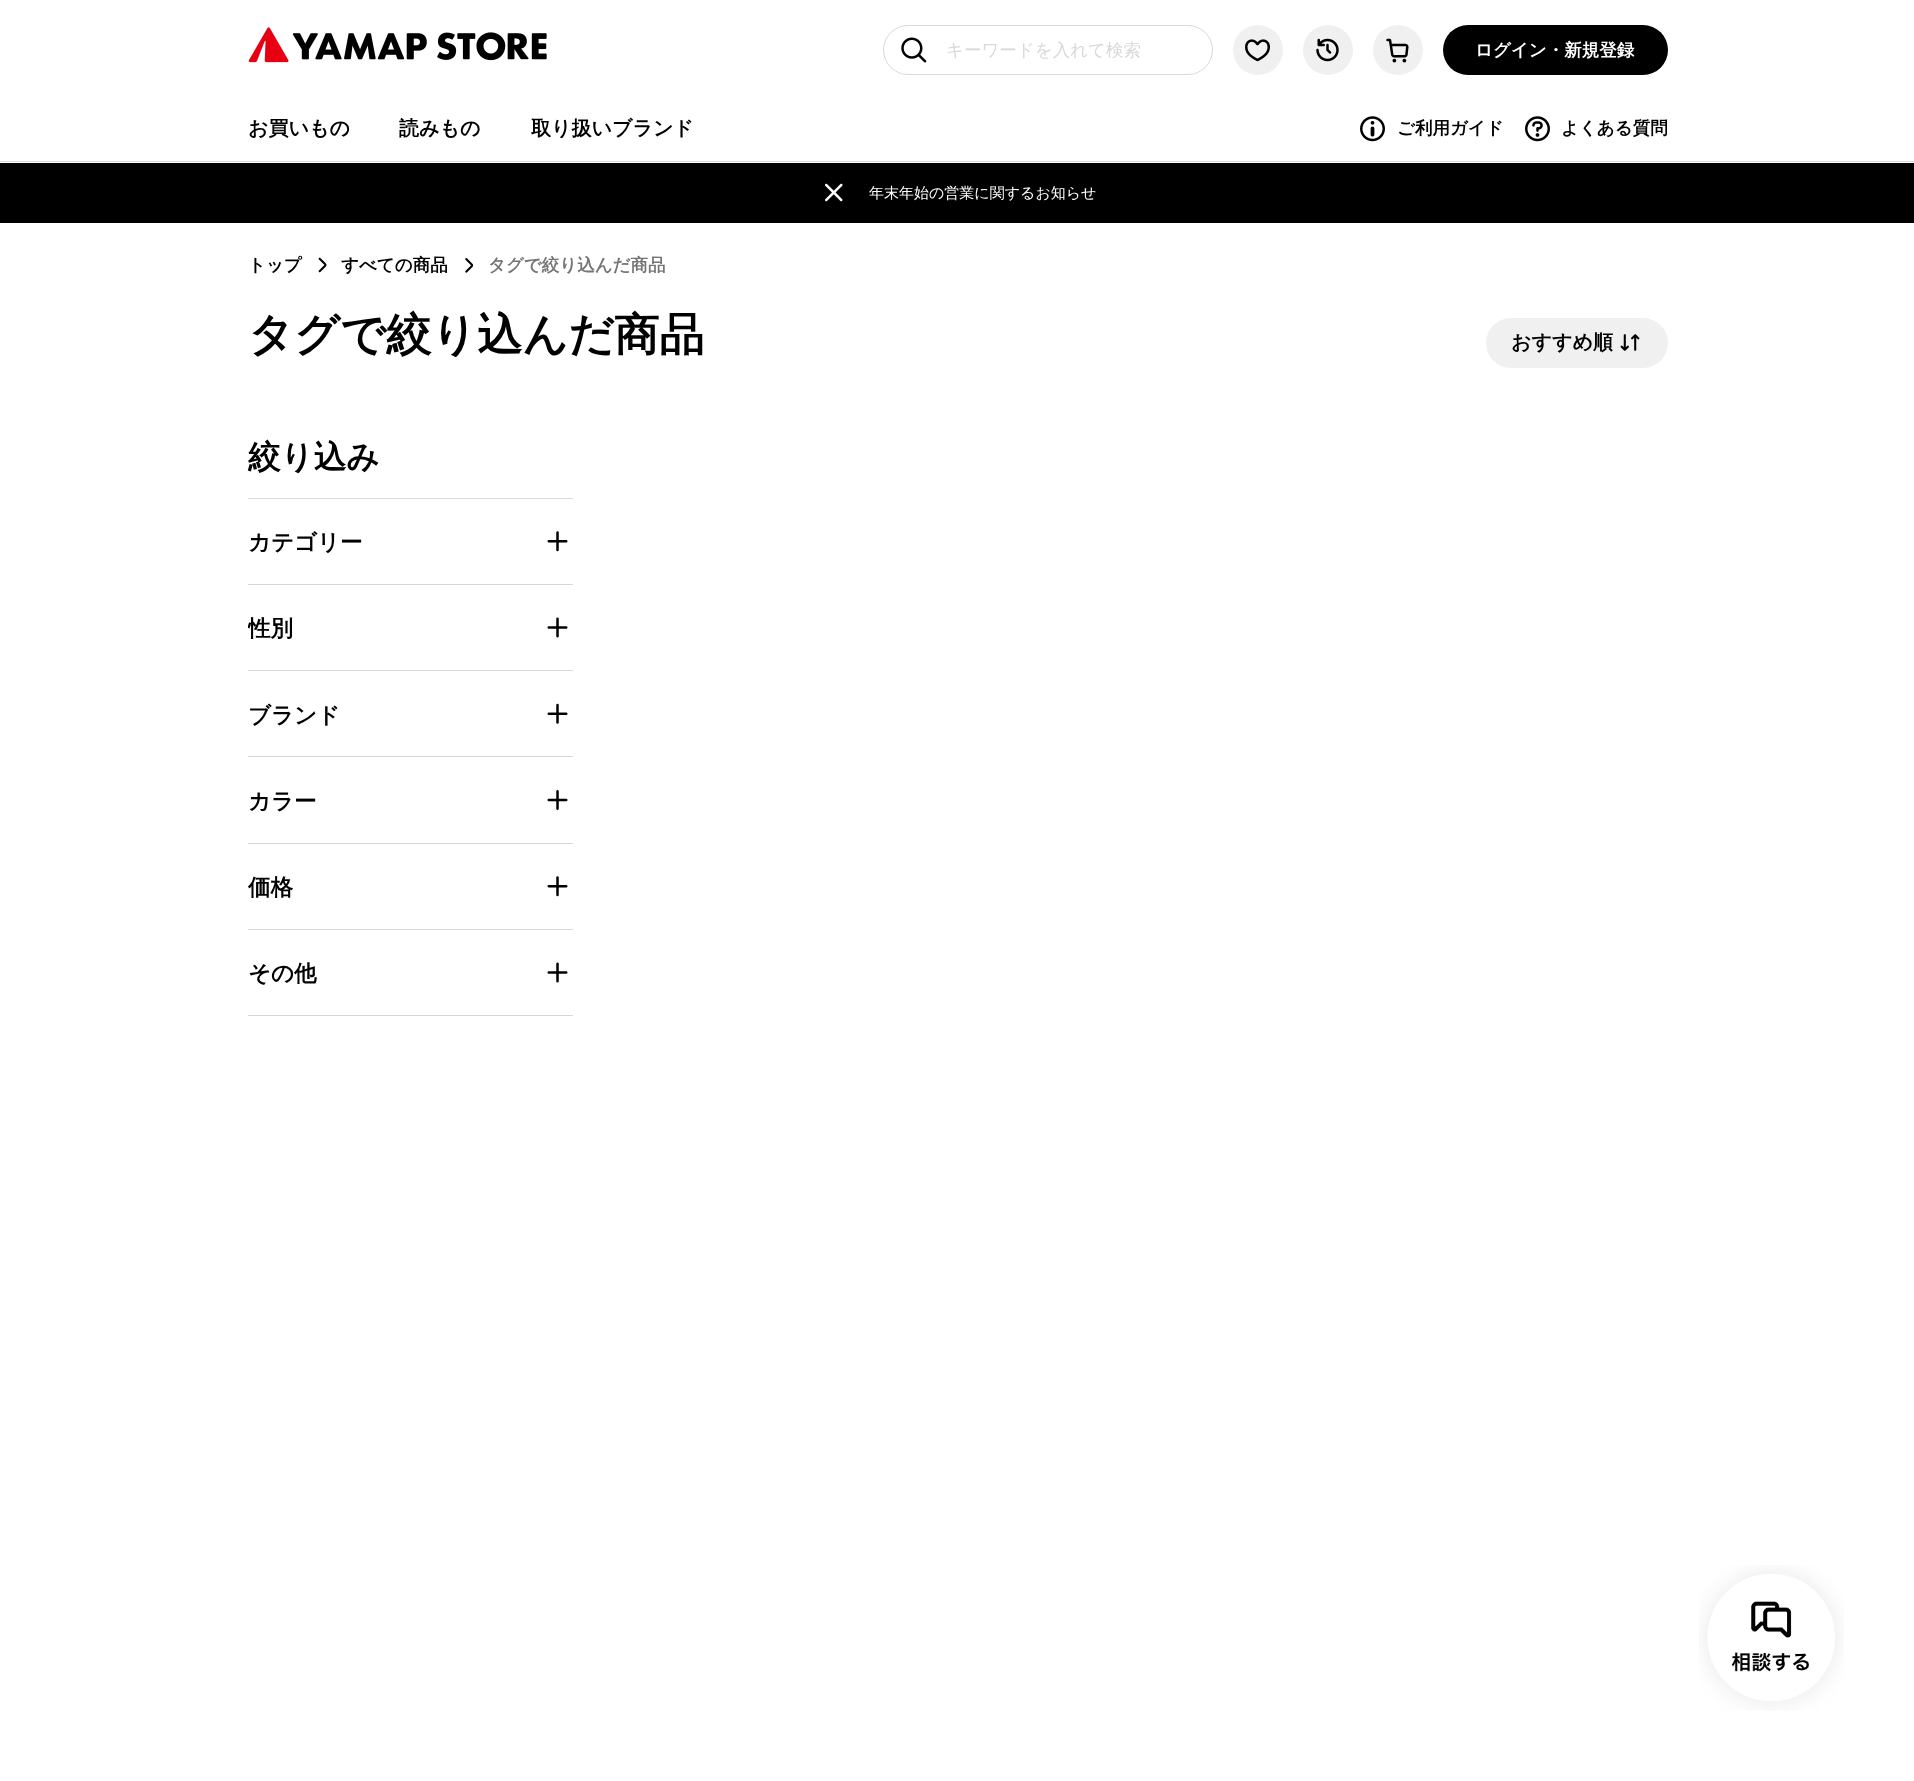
<!DOCTYPE html>
<meta charset="utf-8">
<style>body { margin: 0 } canvas { display: block }</style>
<canvas id="canvas" width="1914" height="1781"></canvas>
<img id="img1" src="img_01.png" hidden>
<img id="img2" src="img_02.png" hidden>
<img id="img3" src="img_03.png" hidden>
<img id="img4" src="img_04.png" hidden>
<img id="img5" src="img_05.png" hidden>
<img id="img6" src="img_06.png" hidden>
<img id="img7" src="img_07.png" hidden>
<img id="img8" src="img_08.png" hidden>
<img id="img9" src="img_09.png" hidden>
<img id="img10" src="img_10.png" hidden>
<img id="img11" src="img_11.png" hidden>
<img id="img12" src="img_12.png" hidden>
<img id="img13" src="img_13.png" hidden>
<img id="img14" src="img_14.png" hidden>
<img id="img15" src="img_15.png" hidden>
<img id="img16" src="img_16.png" hidden>
<script>
window.onload = function () {
	const canvas = document.getElementById("canvas");
	const ctx = canvas.getContext("2d");
	ctx.miterLimit = 4;
	ctx.fontKerning = "normal";
	function txt(s, x, y) {
		ctx.fillText(s, x, y);
	}
	function fill(x, y, w, h) {
		ctx.fillRect(x, y, w, h);
	}
	function round(x, y, w, h, r) {
		ctx.beginPath();
		ctx.roundRect(x, y, w, h, r);
		ctx.fill();
	}
	function img(id, x, y, w, h) {
		ctx.drawImage(document.getElementById(id), x, y, w, h);
	}

	ctx.fillStyle = "#FFFFFF";
	fill(0, 0, 1914, 1781);
	ctx.fillStyle = "#D8D8D8";
	fill(0, 161, 1914, 1);
	img("img1", 248, 27, 299, 36);
	img("img2", 901, 37, 26, 26);
	ctx.beginPath();
	ctx.roundRect(883.5, 25.5, 329, 49, 24.5);
	ctx.strokeStyle = "#D8D8D8";
	ctx.stroke();
	ctx.fillStyle = "#F0F0F0";
	ctx.beginPath();
	ctx.arc(1258, 50, 25, 0, Math.PI * 2);
	ctx.fill();
	img("img3", 1245, 39, 25, 23);
	ctx.beginPath();
	ctx.arc(1328, 50, 25, 0, Math.PI * 2);
	ctx.fill();
	img("img4", 1316, 38, 23, 24);
	ctx.beginPath();
	ctx.arc(1398, 50, 25, 0, Math.PI * 2);
	ctx.fill();
	img("img5", 1386, 38, 23, 25);
	ctx.fillStyle = "#000000";
	round(1443, 25, 225, 50, 25);
	img("img6", 1360, 116, 25, 26);
	img("img7", 1525, 116, 25, 26);
	fill(0, 163, 1914, 60);
	img("img8", 825, 183, 18, 19);
	img("img9", 318, 257, 9, 16);
	img("img10", 465, 258, 9, 15);
	ctx.fillStyle = "#F0F0F0";
	round(1486, 318, 182, 50, 25);
	img("img11", 1620, 334, 20, 17);
	ctx.fillStyle = "#D8D8D8";
	fill(248, 498, 325, 1);
	img("img12", 547, 531, 21, 21);
	fill(248, 584, 325, 1);
	fill(248, 670, 325, 1);
	img("img13", 547, 617, 21, 21);
	fill(248, 756, 325, 1);
	img("img14", 547, 703, 21, 21);
	fill(248, 843, 325, 1);
	img("img15", 547, 790, 21, 20);
	fill(248, 929, 325, 1);
	img("img12", 547, 876, 21, 21);
	fill(248, 1015, 325, 1);
	img("img13", 547, 962, 21, 21);
	img("img16", 1699, 1565, 145, 146);
	ctx.font = "500 17.5px WenQuanYi Zen Hei";
	txt("キーワードを入れて検索", 946, 56);
	ctx.font = "bold 17.5px WenQuanYi Zen Hei";
	ctx.fillStyle = "#FFFFFF";
	txt("ログイン・新規登録", 1475, 56);
	ctx.font = "bold 20px WenQuanYi Zen Hei";
	ctx.fillStyle = "#000000";
	txt("お買いもの", 248, 135);
	txt("読みもの", 399, 135);
	txt("取り扱いブランド", 531, 135);
	ctx.font = "bold 17.5px WenQuanYi Zen Hei";
	txt("ご利用ガイド", 1397, 134);
	txt("よくある質問", 1561, 134);
	ctx.font = "500 15px WenQuanYi Zen Hei";
	ctx.fillStyle = "#FFFFFF";
	txt("年末年始の営業に関するお知らせ", 869, 198);
	ctx.font = "bold 17.5px WenQuanYi Zen Hei";
	ctx.fillStyle = "#000000";
	txt("トップ", 248, 271);
	txt("すべての商品", 341, 271);
	ctx.fillStyle = "#757575";
	txt("タグで絞り込んだ商品", 488, 271);
	ctx.font = "bold 45px WenQuanYi Zen Hei";
	ctx.fillStyle = "#000000";
	txt("タグで絞り込んだ商品", 248, 350);
	ctx.font = "bold 20px WenQuanYi Zen Hei";
	txt("おすすめ順", 1511, 349);
	ctx.font = "bold 32.5px WenQuanYi Zen Hei";
	txt("絞り込み", 248, 468);
	ctx.font = "bold 22.5px WenQuanYi Zen Hei";
	txt("カテゴリー", 248, 550);
	ctx.save();
	ctx.beginPath();
	ctx.rect(248, 433, 325, 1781);
	ctx.clip();
	txt("性別", 248, 636);
	ctx.restore();
	txt("ブランド", 248, 723);
	txt("カラー", 248, 809);
	txt("価格", 248, 895);
	txt("その他", 248, 981);
};
</script>
